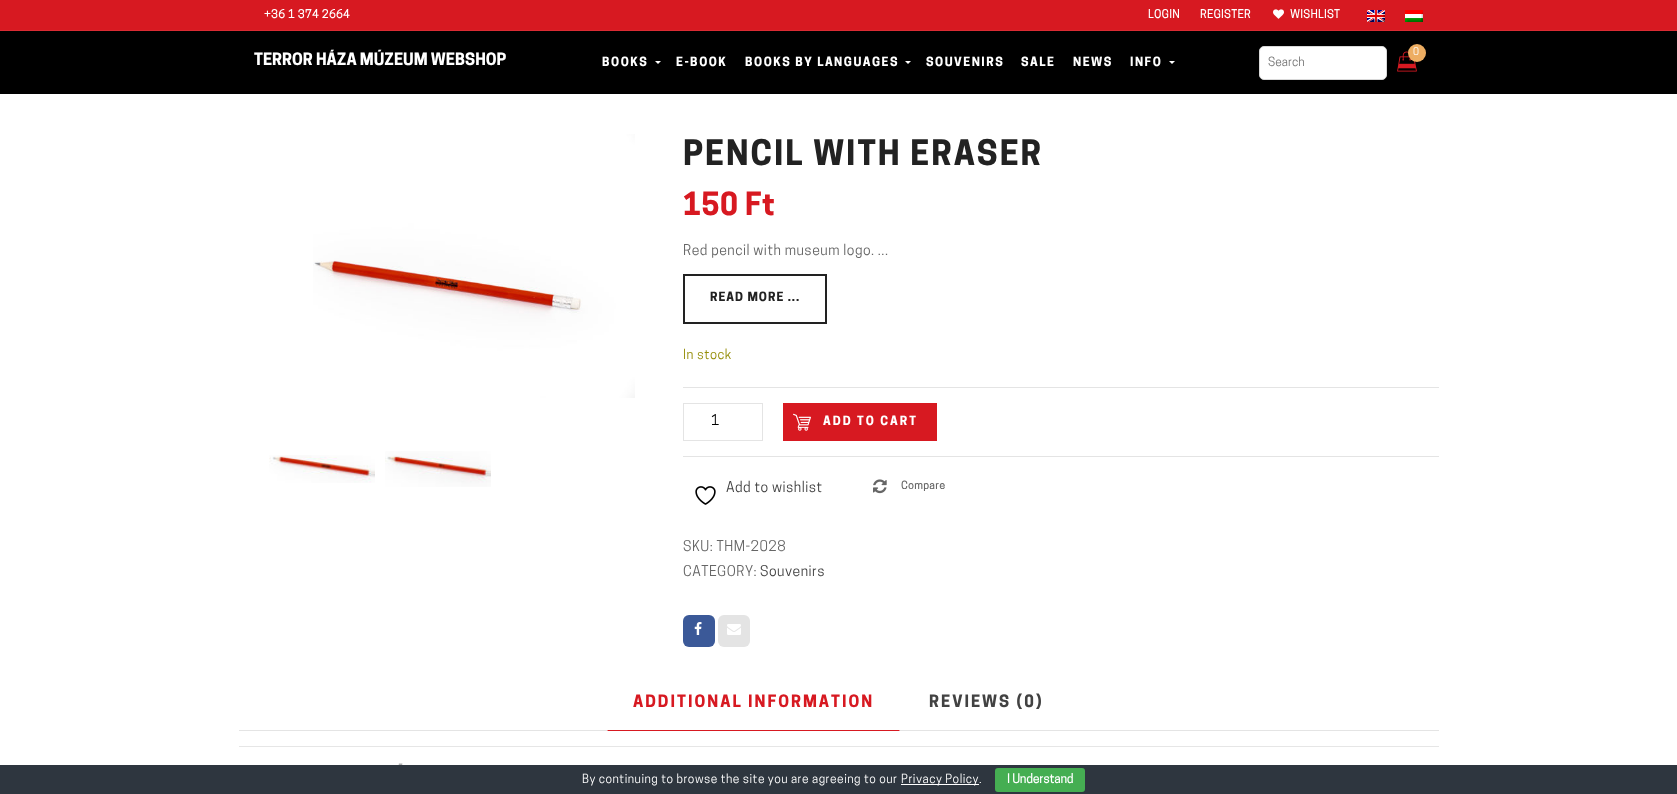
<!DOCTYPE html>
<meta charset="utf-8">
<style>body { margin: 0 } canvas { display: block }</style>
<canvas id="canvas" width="1677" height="794"></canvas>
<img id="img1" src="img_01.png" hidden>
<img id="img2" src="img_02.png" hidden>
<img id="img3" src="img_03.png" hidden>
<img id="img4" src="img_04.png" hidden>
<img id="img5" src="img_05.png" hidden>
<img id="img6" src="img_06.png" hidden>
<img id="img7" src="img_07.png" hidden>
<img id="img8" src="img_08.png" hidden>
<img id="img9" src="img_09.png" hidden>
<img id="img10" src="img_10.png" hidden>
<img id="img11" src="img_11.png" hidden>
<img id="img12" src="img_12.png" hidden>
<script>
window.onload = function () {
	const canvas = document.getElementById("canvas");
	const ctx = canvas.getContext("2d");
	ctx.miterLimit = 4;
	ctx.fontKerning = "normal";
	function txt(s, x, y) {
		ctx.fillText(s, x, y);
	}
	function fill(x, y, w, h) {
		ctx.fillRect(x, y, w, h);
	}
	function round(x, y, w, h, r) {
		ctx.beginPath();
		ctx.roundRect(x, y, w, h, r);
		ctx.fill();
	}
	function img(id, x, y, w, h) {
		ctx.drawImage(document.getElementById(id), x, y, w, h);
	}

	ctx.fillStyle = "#FFFFFF";
	fill(0, 0, 1677, 794);
	ctx.fillStyle = "#000000";
	fill(0, 31, 1677, 63);
	ctx.fillStyle = "#D71921";
	fill(0, 0, 1677, 30);
	ctx.fillStyle = "#DA2B33";
	fill(0, 30, 1677, 1);
	img("img1", 1273, 9, 11, 10);
	img("img2", 1367, 10, 18, 12);
	img("img3", 1405, 10, 18, 12);
	ctx.fillStyle = "#FFFFFF";
	ctx.beginPath();
	ctx.moveTo(655, 61);
	ctx.lineTo(661, 61);
	ctx.lineTo(658, 64);
	ctx.closePath();
	ctx.fill();
	ctx.beginPath();
	ctx.moveTo(905, 61);
	ctx.lineTo(911, 61);
	ctx.lineTo(908, 64);
	ctx.closePath();
	ctx.fill();
	ctx.beginPath();
	ctx.moveTo(1169, 61);
	ctx.lineTo(1175, 61);
	ctx.lineTo(1172, 64);
	ctx.closePath();
	ctx.fill();
	img("img4", 1397, 51, 20, 21);
	ctx.fillStyle = "#EDAD62";
	ctx.beginPath();
	ctx.arc(1417, 53, 9, 0, Math.PI * 2);
	ctx.fill();
	ctx.fillStyle = "#FFFFFF";
	ctx.beginPath();
	ctx.roundRect(1259.5, 46.5, 127, 33, 4.5);
	ctx.fill();
	ctx.strokeStyle = "#D8D8D8";
	ctx.stroke();
	img("img5", 313, 134, 322, 264);
	img("img6", 269, 455, 106, 28);
	img("img7", 385, 451, 106, 36);
	ctx.strokeStyle = "#222222";
	ctx.lineWidth = 2;
	ctx.strokeRect(684, 275, 142, 48);
	ctx.fillStyle = "#E4E4E4";
	fill(683, 387, 756, 1);
	fill(683, 456, 756, 1);
	ctx.strokeStyle = "#E4E4E4";
	ctx.lineWidth = 1;
	ctx.strokeRect(683.5, 403.5, 79, 37);
	ctx.fillStyle = "#D71921";
	fill(783, 403, 154, 38);
	img("img8", 793, 413, 18, 18);
	img("img9", 695, 486, 21, 19);
	img("img10", 873, 479, 14, 15);
	ctx.fillStyle = "#3B5998";
	round(683, 615, 32, 32, 6);
	img("img11", 694, 622, 8, 13);
	ctx.fillStyle = "#E4E4E4";
	round(718, 615, 32, 32, 6);
	img("img12", 727, 624, 14, 11);
	fill(239, 730, 1200, 1);
	ctx.fillStyle = "#FFFFFF";
	fill(607, 730, 293, 1);
	ctx.fillStyle = "#D71921";
	ctx.beginPath();
	ctx.moveTo(900, 731);
	ctx.lineTo(607, 731);
	ctx.lineTo(608, 730);
	ctx.lineTo(899, 730);
	ctx.closePath();
	ctx.fill();
	ctx.fillStyle = "#E6E6E6";
	fill(239, 746, 1200, 1);
	ctx.fillStyle = "#2E363F";
	fill(0, 765, 1677, 29);
	ctx.fillStyle = "#FFFFFF";
	fill(901, 784, 78, 1);
	ctx.fillStyle = "#45AE52";
	round(995, 768, 90, 24, 3);
	ctx.letterSpacing = "0.5px";
	ctx.font = "bold 11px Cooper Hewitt";
	ctx.fillStyle = "#FFFFFF";
	txt("+36 1 374 2664", 264, 18);
	txt("LOGIN", 1148, 18);
	txt("REGISTER", 1200, 18);
	txt("WISHLIST", 1290, 18);
	ctx.letterSpacing = "0px";
	ctx.font = "bold 16px 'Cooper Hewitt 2'";
	txt("TERROR HÁZA MÚZEUM WEBSHOP", 254, 65);
	ctx.letterSpacing = "1.5px";
	ctx.font = "bold 12px 'Cooper Hewitt 2'";
	txt("BOOKS", 602, 66);
	txt("E-BOOK", 676, 66);
	txt("BOOKS BY LANGUAGES", 745, 66);
	txt("SOUVENIRS", 926, 66);
	txt("SALE", 1021, 66);
	txt("NEWS", 1073, 66);
	txt("INFO", 1130, 66);
	ctx.letterSpacing = "0.5px";
	ctx.font = "10px Cooper Hewitt";
	txt("0", 1413, 55);
	ctx.letterSpacing = "0px";
	ctx.font = "12px Cooper Hewitt";
	ctx.fillStyle = "#757575";
	txt("Search", 1268, 66);
	ctx.letterSpacing = "2px";
	ctx.font = "bold 33px 'Cooper Hewitt 2'";
	ctx.fillStyle = "#222222";
	txt("PENCIL WITH ERASER", 683, 165);
	ctx.letterSpacing = "0.5px";
	ctx.font = "bold 30px 'Cooper Hewitt 2'";
	ctx.fillStyle = "#D71921";
	txt("150 Ft", 683, 215);
	ctx.font = "14px Cooper Hewitt";
	ctx.fillStyle = "#666666";
	txt("Red pencil with museum logo. ...", 683, 255);
	ctx.letterSpacing = "1px";
	ctx.font = "bold 12px 'Cooper Hewitt 2'";
	ctx.fillStyle = "#222222";
	txt("READ MORE ...", 710, 301);
	ctx.letterSpacing = "0.5px";
	ctx.font = "13px Cooper Hewitt";
	ctx.fillStyle = "#958E09";
	txt("In stock", 683, 359);
	ctx.letterSpacing = "0px";
	ctx.font = "14px Cooper Hewitt";
	ctx.fillStyle = "#000000";
	txt("1", 711, 425);
	ctx.letterSpacing = "2px";
	ctx.font = "bold 12px 'Cooper Hewitt 2'";
	ctx.fillStyle = "#FFFFFF";
	txt("ADD TO CART", 823, 425);
	ctx.letterSpacing = "0.5px";
	ctx.font = "14px Cooper Hewitt";
	ctx.fillStyle = "#424242";
	txt("Add to wishlist", 726, 492);
	ctx.font = "bold 10.5px Cooper Hewitt";
	ctx.fillStyle = "#666666";
	txt("Compare", 901, 489);
	ctx.font = "14px Cooper Hewitt";
	txt("SKU: THM-2028", 683, 551);
	txt("CATEGORY:", 683, 576);
	ctx.fillStyle = "#424242";
	txt("Souvenirs", 760, 576);
	ctx.letterSpacing = "2px";
	ctx.font = "bold 16px 'Cooper Hewitt 2'";
	ctx.fillStyle = "#D71921";
	txt("ADDITIONAL INFORMATION", 633, 707);
	ctx.fillStyle = "#424242";
	txt("REVIEWS (0)", 929, 707);
	ctx.letterSpacing = "0.5px";
	ctx.font = "italic 14px Cooper Hewitt";
	ctx.fillStyle = "#666666";
	txt("-", 397, 769);
	ctx.font = "12px Cooper Hewitt";
	ctx.fillStyle = "#FFFFFF";
	txt("By continuing to browse the site you are agreeing to our", 582, 783);
	txt("Privacy Policy.", 901, 783);
	ctx.letterSpacing = "0px";
	ctx.font = "bold 12px Cooper Hewitt";
	txt("I Understand", 1007, 783);
};
</script>
